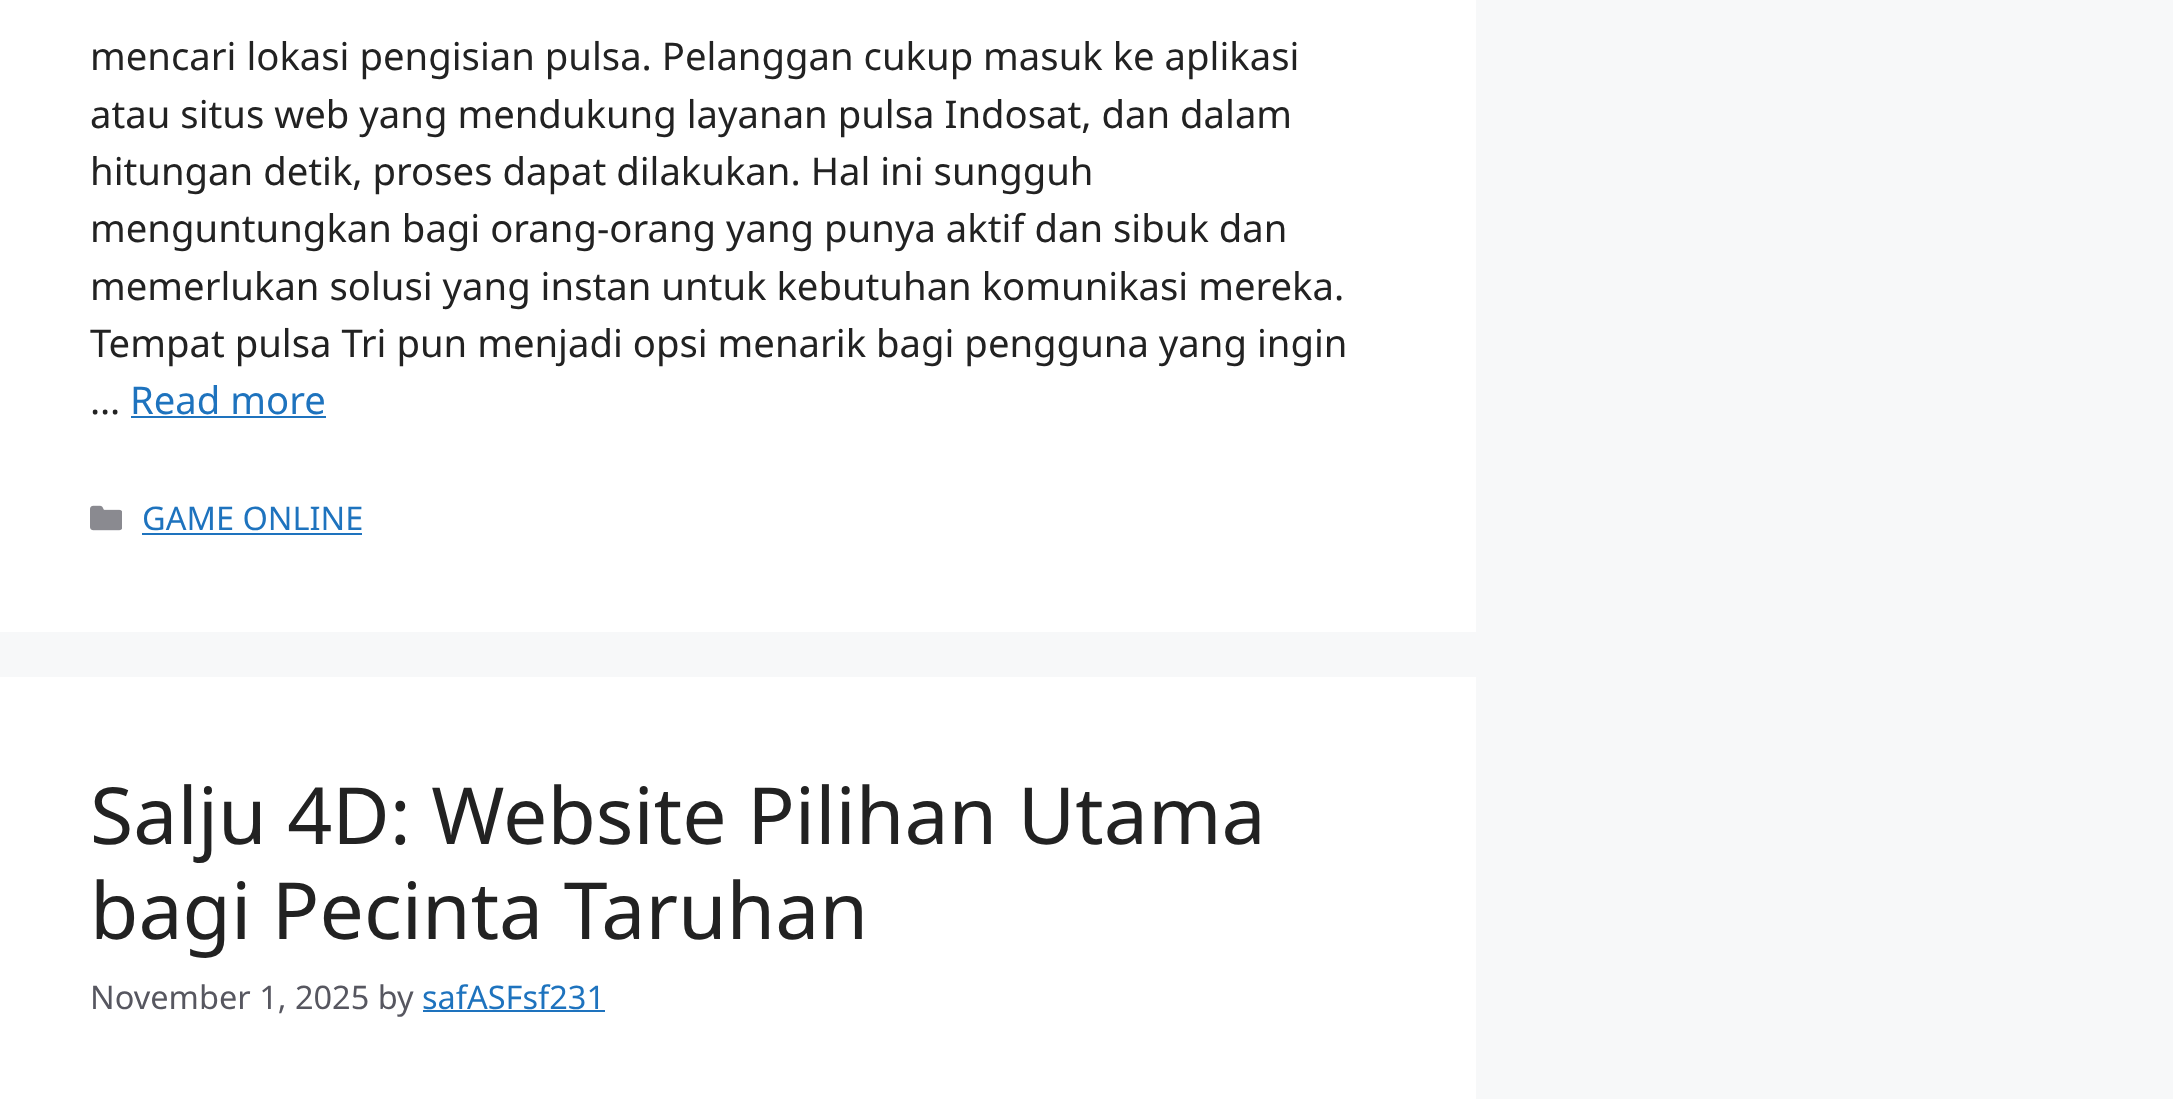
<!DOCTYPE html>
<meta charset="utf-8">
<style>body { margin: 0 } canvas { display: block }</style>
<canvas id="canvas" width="2173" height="1099"></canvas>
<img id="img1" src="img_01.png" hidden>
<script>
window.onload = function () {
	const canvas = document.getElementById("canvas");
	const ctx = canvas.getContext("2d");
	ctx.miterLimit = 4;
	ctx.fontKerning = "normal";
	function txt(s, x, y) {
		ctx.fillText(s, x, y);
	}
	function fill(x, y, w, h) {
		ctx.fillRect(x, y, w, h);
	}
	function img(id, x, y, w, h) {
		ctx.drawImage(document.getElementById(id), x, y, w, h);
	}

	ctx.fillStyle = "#F7F8F9";
	fill(0, 0, 2173, 1099);
	ctx.fillStyle = "#FFFFFF";
	fill(0, 0, 1476, 632);
	ctx.fillStyle = "#1E73BE";
	fill(131, 416, 195, 2);
	img("img1", 90, 505, 32, 26);
	fill(142, 533, 220, 2);
	ctx.fillStyle = "#FFFFFF";
	fill(0, 677, 1476, 422);
	ctx.fillStyle = "#1E73BE";
	fill(423, 1010, 182, 2);
	ctx.font = "38.25px Noto Sans";
	ctx.fillStyle = "#222222";
	txt("mencari lokasi pengisian pulsa. Pelanggan cukup masuk ke aplikasi", 90, 70);
	txt("atau situs web yang mendukung layanan pulsa Indosat, dan dalam", 90, 128);
	txt("hitungan detik, proses dapat dilakukan. Hal ini sungguh", 90, 185);
	txt("menguntungkan bagi orang-orang yang punya aktif dan sibuk dan", 90, 242);
	txt("memerlukan solusi yang instan untuk kebutuhan komunikasi mereka.", 90, 300);
	txt("Tempat pulsa Tri pun menjadi opsi menarik bagi pengguna yang ingin", 90, 357);
	txt("…", 90, 414);
	ctx.fillStyle = "#1E73BE";
	txt("Read more", 130, 414);
	ctx.font = "32.5px Noto Sans";
	txt("GAME ONLINE", 142, 530);
	ctx.font = "78.75px Noto Sans";
	ctx.fillStyle = "#222222";
	txt("Salju 4D: Website Pilihan Utama", 90, 844);
	txt("bagi Pecinta Taruhan", 90, 939);
	ctx.font = "32.5px Noto Sans";
	ctx.fillStyle = "#575760";
	txt("November 1, 2025 by", 90, 1009);
	ctx.fillStyle = "#1E73BE";
	txt("safASFsf231", 422, 1009);
};
</script>
